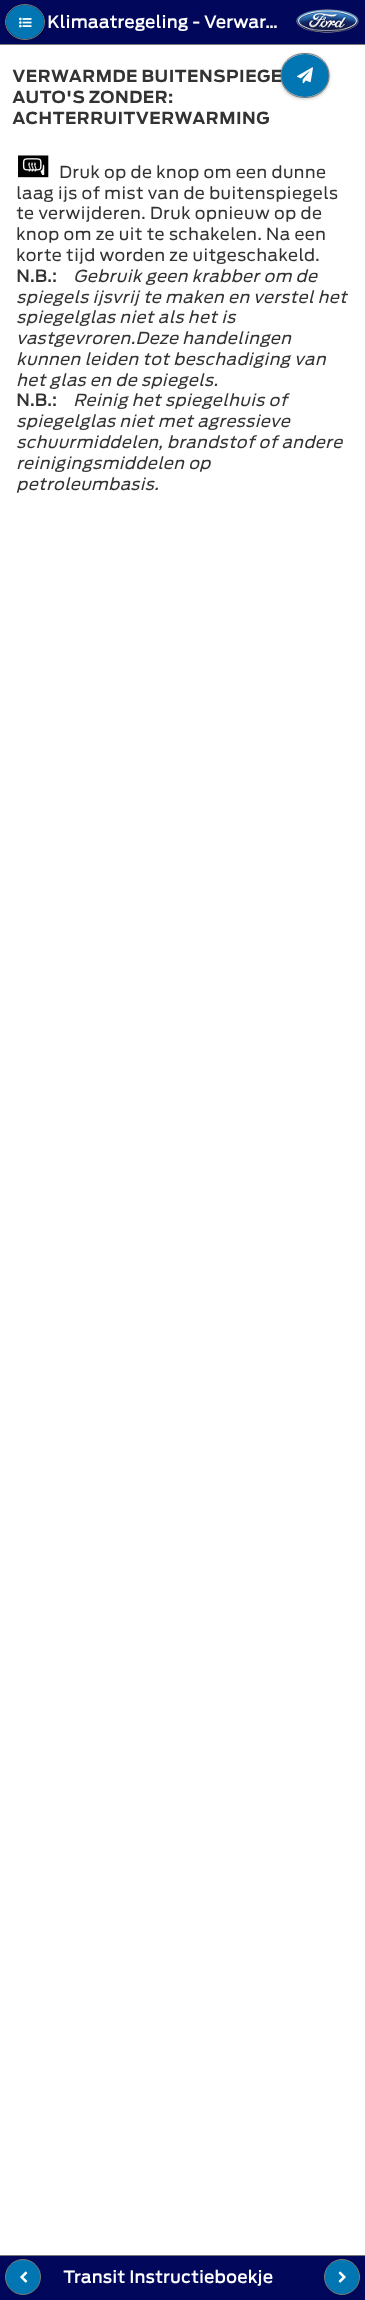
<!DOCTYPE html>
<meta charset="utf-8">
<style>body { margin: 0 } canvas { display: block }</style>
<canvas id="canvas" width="365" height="2300"></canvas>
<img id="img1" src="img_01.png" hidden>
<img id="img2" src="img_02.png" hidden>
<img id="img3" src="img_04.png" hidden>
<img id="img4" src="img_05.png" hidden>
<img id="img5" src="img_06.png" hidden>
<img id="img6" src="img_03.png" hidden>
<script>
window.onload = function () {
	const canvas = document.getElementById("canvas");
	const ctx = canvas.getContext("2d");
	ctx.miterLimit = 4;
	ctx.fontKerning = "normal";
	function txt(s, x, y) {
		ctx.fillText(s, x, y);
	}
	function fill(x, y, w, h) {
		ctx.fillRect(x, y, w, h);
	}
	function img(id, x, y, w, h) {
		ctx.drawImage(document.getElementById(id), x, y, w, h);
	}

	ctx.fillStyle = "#FFFFFF";
	fill(0, 0, 365, 2300);
	ctx.fillStyle = "#01085C";
	fill(0, 0, 365, 44);
	ctx.fillStyle = "#787878";
	fill(0, 44, 365, 1);
	ctx.fillStyle = "rgba(0, 0, 0, 0.2)";
	ctx.filter = "blur(1.5px)";
	ctx.beginPath();
	ctx.roundRect(5, 5, 40, 36, 18);
	ctx.fill();
	ctx.filter = "none";
	ctx.fillStyle = "#0276B3";
	ctx.beginPath();
	ctx.ellipse(25, 22, 19, 17, 0, 0, Math.PI * 2);
	ctx.fill();
	ctx.beginPath();
	ctx.moveTo(25, 4.5);
	ctx.bezierCurveTo(36, 4.5, 44.5, 12.5, 44.5, 22);
	ctx.bezierCurveTo(44.5, 31.5, 36, 39.5, 25, 39.5);
	ctx.bezierCurveTo(14, 39.5, 5.5, 31.5, 5.5, 22);
	ctx.bezierCurveTo(5.5, 12.5, 14, 4.5, 25, 4.5);
	ctx.closePath();
	ctx.strokeStyle = "#787878";
	ctx.stroke();
	img("img1", 19, 17, 13, 11);
	img("img2", 296, 9, 63, 24);
	ctx.fillStyle = "rgba(0, 0, 0, 0.2)";
	ctx.filter = "blur(1.5px)";
	ctx.beginPath();
	ctx.roundRect(280, 54, 50, 45, 22.5);
	ctx.fill();
	ctx.filter = "none";
	img("img3", 18, 155, 31, 23);
	ctx.fillStyle = "#01085C";
	fill(0, 2256, 365, 44);
	ctx.fillStyle = "#787878";
	fill(0, 2255, 365, 1);
	ctx.fillStyle = "rgba(0, 0, 0, 0.2)";
	ctx.filter = "blur(1.5px)";
	ctx.beginPath();
	ctx.roundRect(5, 2260, 36, 36, 18);
	ctx.fill();
	ctx.filter = "none";
	ctx.fillStyle = "#0276B3";
	ctx.beginPath();
	ctx.arc(23, 2277, 17.5, 0, Math.PI * 2);
	ctx.fill();
	ctx.stroke();
	img("img4", 20, 2271, 8, 12);
	ctx.fillStyle = "rgba(0, 0, 0, 0.2)";
	ctx.filter = "blur(1.5px)";
	ctx.beginPath();
	ctx.roundRect(324, 2260, 36, 36, 18);
	ctx.fill();
	ctx.filter = "none";
	ctx.fillStyle = "#0276B3";
	ctx.beginPath();
	ctx.arc(342, 2277, 17.5, 0, Math.PI * 2);
	ctx.fill();
	ctx.stroke();
	img("img5", 338, 2271, 8, 12);
	ctx.font = "bold 16px 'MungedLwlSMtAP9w'";
	ctx.fillStyle = "#FFFFFF";
	txt("Klimaatregeling - Verwar…", 47, 28);
	ctx.font = "bold 16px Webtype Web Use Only";
	ctx.fillStyle = "#333333";
	txt("VERWARMDE BUITENSPIEGE", 12, 82);
	txt("AUTO'S ZONDER:", 12, 103);
	txt("ACHTERRUITVERWARMING", 12, 124);
	ctx.fillStyle = "#0276B3";
	ctx.beginPath();
	ctx.ellipse(305, 75.5, 24, 21.5, 0, 0, Math.PI * 2);
	ctx.fill();
	ctx.beginPath();
	ctx.moveTo(305, 53.5);
	ctx.bezierCurveTo(337, 53.5, 337, 97.5, 305, 97.5);
	ctx.bezierCurveTo(273, 97.5, 273, 53.5, 305, 53.5);
	ctx.closePath();
	ctx.stroke();
	img("img6", 297, 67, 16, 17);
	ctx.font = "16px 'MungedLwlSMtAP9w'";
	ctx.fillStyle = "#333333";
	txt("Druk op de knop om een dunne", 59, 178);
	txt("laag ijs of mist van de buitenspiegels", 16, 199);
	txt("te verwijderen. Druk opnieuw op de", 16, 219);
	txt("knop om ze uit te schakelen. Na een", 16, 240);
	txt("korte tijd worden ze uitgeschakeld.", 16, 261);
	ctx.font = "bold 16px 'MungedLwlSMtAP9w'";
	txt("N.B.:", 16, 282);
	ctx.font = "italic 16px 'MungedLwlSMtAP9w'";
	txt("Gebruik geen krabber om de", 73, 282);
	txt("spiegels ijsvrij te maken en verstel het", 16, 303);
	txt("spiegelglas niet als het is", 16, 323);
	txt("vastgevroren.Deze handelingen", 16, 344);
	txt("kunnen leiden tot beschadiging van", 16, 365);
	txt("het glas en de spiegels.", 16, 386);
	ctx.font = "bold 16px 'MungedLwlSMtAP9w'";
	txt("N.B.:", 16, 406);
	ctx.font = "italic 16px 'MungedLwlSMtAP9w'";
	txt("Reinig het spiegelhuis of", 73, 406);
	txt("spiegelglas niet met agressieve", 16, 427);
	txt("schuurmiddelen, brandstof of andere", 16, 448);
	txt("reinigingsmiddelen op", 16, 469);
	txt("petroleumbasis.", 16, 490);
	ctx.font = "bold 16px 'MungedLwlSMtAP9w'";
	ctx.fillStyle = "#FFFFFF";
	txt("Transit Instructieboekje", 63, 2283);
};
</script>
